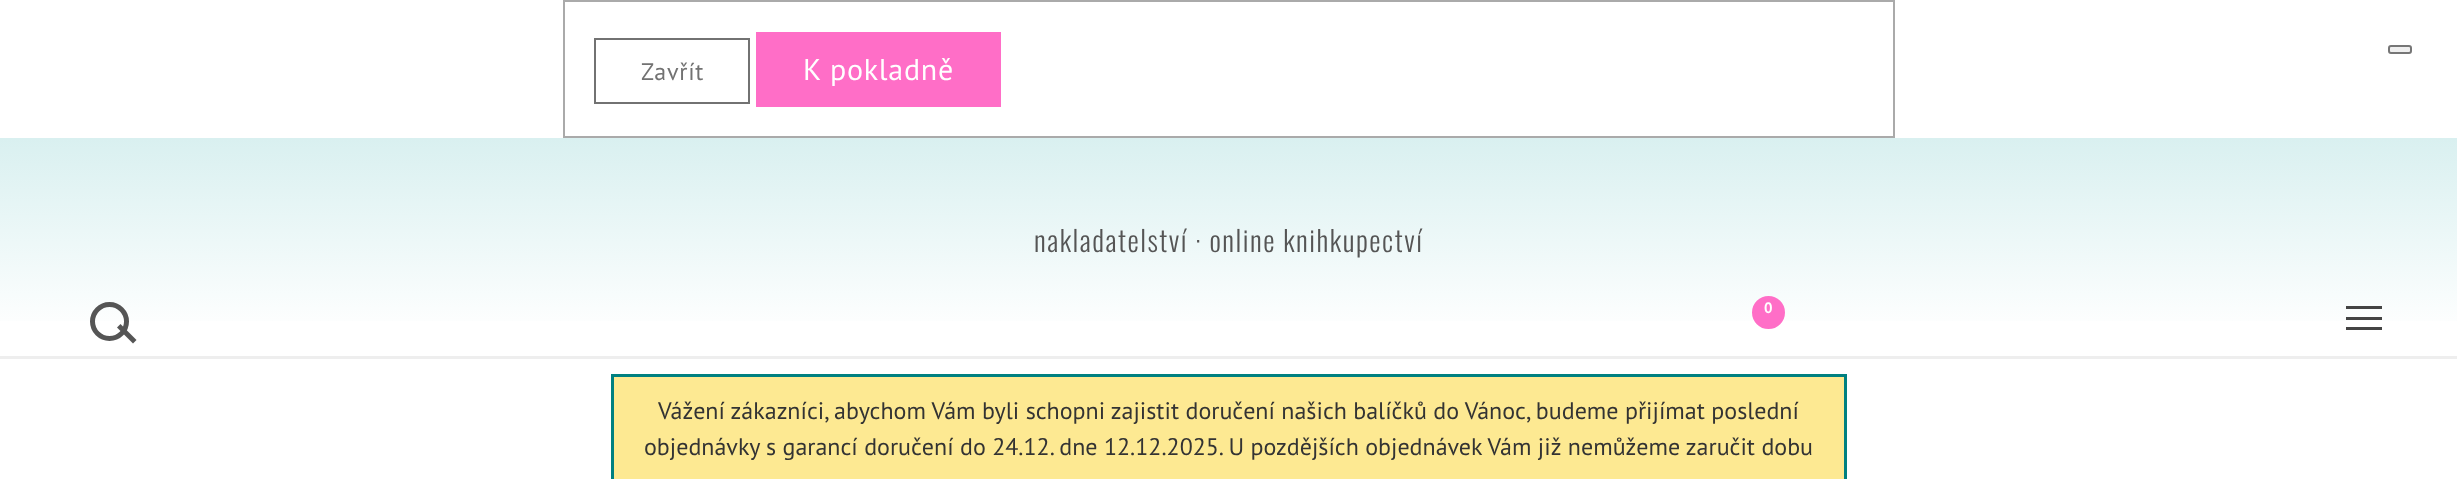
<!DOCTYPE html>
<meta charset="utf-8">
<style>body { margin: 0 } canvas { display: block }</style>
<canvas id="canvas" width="2457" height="479"></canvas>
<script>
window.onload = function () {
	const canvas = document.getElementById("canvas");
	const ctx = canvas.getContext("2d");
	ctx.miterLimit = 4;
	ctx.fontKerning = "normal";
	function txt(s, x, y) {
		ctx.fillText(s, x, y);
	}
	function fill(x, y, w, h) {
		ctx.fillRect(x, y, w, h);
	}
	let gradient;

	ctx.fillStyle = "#FFFFFF";
	fill(0, 0, 2457, 479);
	ctx.strokeStyle = "#AAAAAA";
	ctx.lineWidth = 2;
	ctx.strokeRect(564, 1, 1330, 136);
	ctx.fillStyle = "#EFEFEF";
	ctx.beginPath();
	ctx.roundRect(2389, 46, 22, 7, 2);
	ctx.fill();
	ctx.strokeStyle = "#767676";
	ctx.stroke();
	ctx.strokeStyle = "#727272";
	ctx.strokeRect(595, 39, 154, 64);
	ctx.fillStyle = "#FF6EC7";
	fill(756, 32, 245, 75);
	ctx.fillStyle = "#EEEEEE";
	fill(0, 356, 2457, 3);
	gradient = ctx.createLinearGradient(1229, 138, 1229, 356);
	gradient.addColorStop(0, "#D9F0F0");
	gradient.addColorStop(0.9, "#FFFFFF");
	ctx.fillStyle = gradient;
	fill(0, 138, 2457, 183);
	ctx.beginPath();
	ctx.arc(109.5, 321.5, 17, 0, Math.PI * 2);
	ctx.strokeStyle = "#555555";
	ctx.lineWidth = 5;
	ctx.stroke();
	ctx.fillStyle = "#555555";
	ctx.beginPath();
	ctx.moveTo(117, 327.5);
	ctx.lineTo(120.5, 324);
	ctx.lineTo(136.5, 340);
	ctx.lineTo(133, 343.5);
	ctx.closePath();
	ctx.fill();
	ctx.fillStyle = "#FF6EC7";
	ctx.beginPath();
	ctx.arc(1768.5, 312.5, 15, 0, Math.PI * 2);
	ctx.fill();
	ctx.strokeStyle = "#FF6EC7";
	ctx.lineWidth = 3;
	ctx.stroke();
	ctx.fillStyle = "#444444";
	fill(2346, 306, 36, 3);
	fill(2346, 317, 36, 3);
	fill(2346, 327, 36, 3);
	ctx.fillStyle = "#FDE992";
	ctx.beginPath();
	ctx.rect(612.5, 375.5, 1233, 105);
	ctx.fill();
	ctx.strokeStyle = "#008080";
	ctx.stroke();
	ctx.letterSpacing = "0.75px";
	ctx.font = "24px PT Sans";
	ctx.fillStyle = "#727272";
	txt("Zavřít", 641, 80);
	ctx.font = "30px PT Sans";
	ctx.fillStyle = "#FFFFFF";
	txt("K pokladně", 803, 80);
	ctx.letterSpacing = "1.5px";
	ctx.font = "300 28.5px Oswald";
	ctx.fillStyle = "#555555";
	txt("nakladatelství · online knihkupectví", 1034, 252);
	ctx.letterSpacing = "0px";
	ctx.font = "bold 15px PT Sans";
	ctx.fillStyle = "#FFFFFF";
	txt("0", 1764, 313);
	ctx.font = "24px PT Sans";
	ctx.fillStyle = "#333333";
	txt("Vážení zákazníci, abychom Vám byli schopni zajistit doručení našich balíčků do Vánoc, budeme přijímat poslední", 658, 419);
	txt("objednávky s garancí doručení do 24.12. dne 12.12.2025. U pozdějších objednávek Vám již nemůžeme zaručit dobu", 644, 455);
};
</script>
